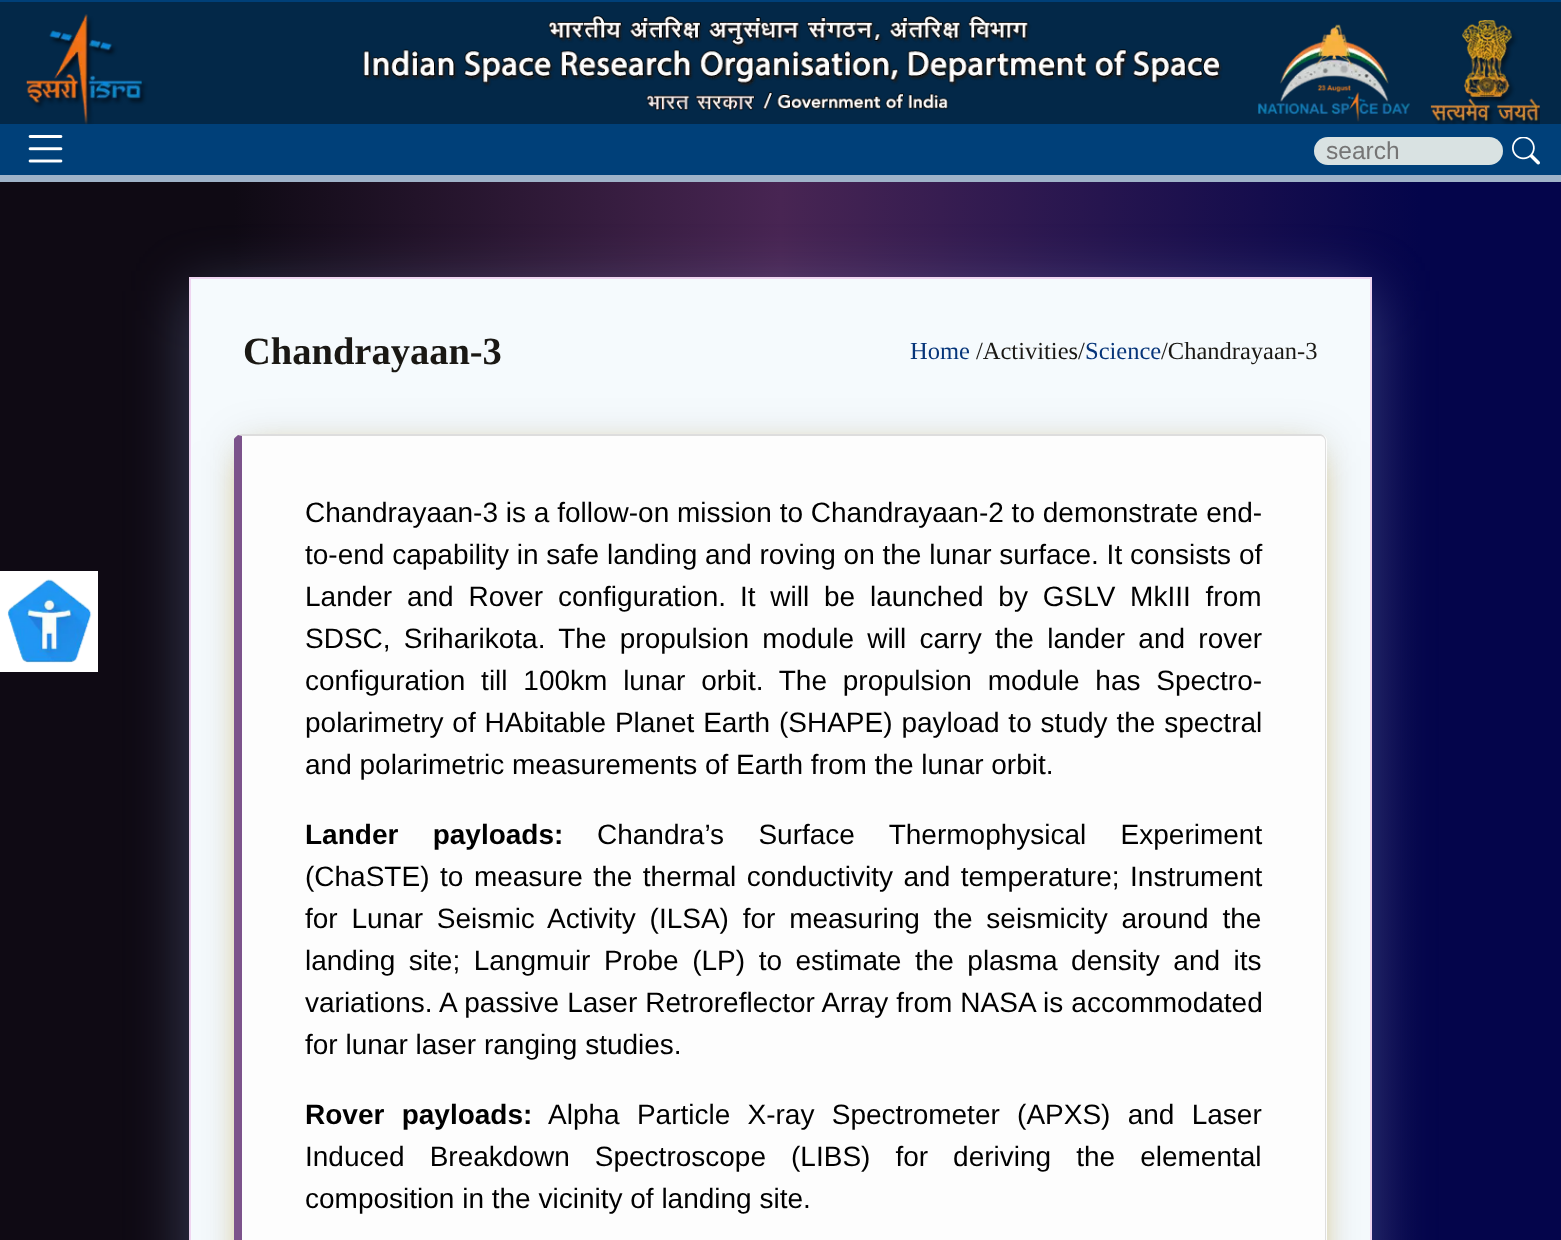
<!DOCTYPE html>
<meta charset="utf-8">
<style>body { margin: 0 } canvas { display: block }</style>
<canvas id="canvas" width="1561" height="1240"></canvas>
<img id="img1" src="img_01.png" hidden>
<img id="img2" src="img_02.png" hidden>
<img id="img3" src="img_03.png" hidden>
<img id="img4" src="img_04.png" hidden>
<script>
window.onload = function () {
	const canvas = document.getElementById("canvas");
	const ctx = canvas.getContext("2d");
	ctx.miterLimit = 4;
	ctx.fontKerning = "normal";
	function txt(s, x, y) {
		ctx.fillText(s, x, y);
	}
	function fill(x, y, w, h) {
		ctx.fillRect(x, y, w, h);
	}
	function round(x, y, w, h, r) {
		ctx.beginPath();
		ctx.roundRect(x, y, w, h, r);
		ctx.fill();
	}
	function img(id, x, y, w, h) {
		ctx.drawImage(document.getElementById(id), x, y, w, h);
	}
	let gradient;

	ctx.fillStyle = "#004079";
	fill(0, 0, 1561, 1240);
	ctx.fillStyle = "#9FB3C9";
	fill(0, 175, 1561, 7);
	ctx.fillStyle = "#032848";
	fill(0, 2, 1561, 122);
	img("img1", 26, 14, 1514, 111);
	img("img2", 28, 135, 35, 28);
	ctx.fillStyle = "#D9E2E2";
	round(1314, 137, 189, 28, 14);
	img("img3", 1512, 137, 28, 28);
	gradient = ctx.createLinearGradient(0, 822, 1561, 822);
	gradient.addColorStop(0.15, "#0F0A14");
	gradient.addColorStop(0.5, "#482553");
	gradient.addColorStop(0.91, "#04054B");
	ctx.fillStyle = gradient;
	fill(0, 182, 1561, 1058);
	ctx.fillStyle = "rgba(147, 171, 225, 0.33)";
	ctx.filter = "blur(30.5px)";
	ctx.beginPath();
	ctx.rect(189, 291, 1183, 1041);
	ctx.fill();
	ctx.filter = "none";
	ctx.fillStyle = "#FFFFFF";
	fill(0, 571, 98, 101);
	img("img4", 7, 579, 85, 84);
	ctx.fillStyle = "#F5FAFD";
	ctx.beginPath();
	ctx.rect(190, 278, 1181, 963);
	ctx.fill();
	ctx.strokeStyle = "#EFD5F1";
	ctx.lineWidth = 2;
	ctx.stroke();
	ctx.fillStyle = "rgba(177, 171, 253, 0.2)";
	ctx.filter = "blur(9px)";
	ctx.beginPath();
	ctx.rect(243, 457, 1075, 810);
	ctx.fill();
	ctx.filter = "none";
	ctx.fillStyle = "rgba(0, 0, 0, 0.12)";
	ctx.filter = "blur(22px)";
	ctx.beginPath();
	ctx.roundRect(235, 441, 1092, 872, 7);
	ctx.fill();
	ctx.filter = "none";
	ctx.fillStyle = "#F2B600";
	ctx.filter = "blur(17.5px)";
	ctx.beginPath();
	ctx.rect(252, 460, 1057, 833);
	ctx.fill();
	ctx.filter = "none";
	ctx.fillStyle = "#FDFDFD";
	round(235, 434, 1092, 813, 7);
	ctx.fillStyle = "#DDDDDD";
	ctx.beginPath();
	ctx.moveTo(242, 434);
	ctx.lineTo(238, 435);
	ctx.lineTo(242, 436);
	ctx.lineTo(1320, 436);
	ctx.bezierCurveTo(1321, 436, 1322, 436, 1323, 437);
	ctx.lineTo(1324, 436);
	ctx.bezierCurveTo(1323, 435, 1322, 434, 1320, 434);
	ctx.closePath();
	ctx.fill();
	ctx.fillStyle = "rgba(0, 0, 0, 0.12)";
	ctx.beginPath();
	ctx.moveTo(1324, 436);
	ctx.bezierCurveTo(1325, 437, 1326, 439, 1326, 441);
	ctx.lineTo(1326, 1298);
	ctx.bezierCurveTo(1326, 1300, 1325, 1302, 1324, 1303);
	ctx.lineTo(1323, 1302);
	ctx.bezierCurveTo(1324, 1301, 1325, 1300, 1325, 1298);
	ctx.lineTo(1325, 441);
	ctx.bezierCurveTo(1325, 439, 1324, 438, 1323, 437);
	ctx.closePath();
	ctx.fill();
	ctx.fillStyle = "#7C538B";
	ctx.beginPath();
	ctx.moveTo(242, 436);
	ctx.lineTo(242, 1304);
	ctx.lineTo(238, 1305);
	ctx.bezierCurveTo(236, 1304, 235, 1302, 234, 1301);
	ctx.lineTo(234, 439);
	ctx.bezierCurveTo(235, 437, 237, 436, 238, 435);
	ctx.closePath();
	ctx.fill();
	ctx.font = "24.5px Liberation Sans";
	ctx.fillStyle = "#757575";
	txt("search", 1326, 159);
	ctx.font = "bold 38.5px Liberation Serif";
	ctx.fillStyle = "#1A1814";
	txt("Chandrayaan-3", 243, 364);
	ctx.font = "24.5px Liberation Serif";
	ctx.fillStyle = "#06357A";
	txt("Home", 910, 359);
	ctx.fillStyle = "#1A1814";
	txt("/Activities/", 976, 359);
	ctx.fillStyle = "#06357A";
	txt("Science", 1085, 359);
	ctx.fillStyle = "#1A1814";
	txt("/Chandrayaan-3", 1161, 359);
	ctx.font = "28px Liberation Sans";
	ctx.fillStyle = "#000000";
	txt("Chandrayaan-3 is a follow-on mission to Chandrayaan-2 to demonstrate end-", 305, 522);
	txt("to-end capability in safe landing and roving on the lunar surface. It consists of", 305, 564);
	ctx.wordSpacing = "7px";
	txt("Lander and Rover configuration.", 305, 606);
	txt("It will be launched by GSLV MkIII from", 740, 606);
	ctx.wordSpacing = "5.5px";
	txt("SDSC, Sriharikota. The propulsion module will carry the lander and rover", 305, 648);
	ctx.wordSpacing = "8px";
	txt("configuration till 100km lunar orbit. The propulsion module has Spectro-", 305, 690);
	ctx.wordSpacing = "1.1px";
	txt("polarimetry of HAbitable Planet Earth (SHAPE) payload to study the spectral", 305, 732);
	ctx.wordSpacing = "0px";
	txt("and polarimetric measurements of Earth from the lunar orbit.", 305, 774);
	ctx.wordSpacing = "26.5px";
	ctx.font = "bold 28px Liberation Sans";
	txt("Lander payloads:", 305, 844);
	ctx.font = "28px Liberation Sans";
	txt("Chandra’s Surface Thermophysical Experiment", 597, 844);
	ctx.wordSpacing = "2.75px";
	txt("(ChaSTE) to measure the thermal conductivity and temperature; Instrument", 305, 886);
	ctx.wordSpacing = "6px";
	txt("for Lunar Seismic Activity (ILSA) for measuring the seismicity around the", 305, 928);
	ctx.wordSpacing = "5.75px";
	txt("landing site; Langmuir Probe (LP) to estimate the plasma density and its", 305, 970);
	ctx.wordSpacing = "0.25px";
	txt("variations. A passive Laser Retroreflector Array from NASA is accommodated", 305, 1012);
	ctx.wordSpacing = "0px";
	txt("for lunar laser ranging studies.", 305, 1054);
	ctx.wordSpacing = "9.5px";
	ctx.font = "bold 28px Liberation Sans";
	txt("Rover payloads:", 305, 1124);
	ctx.font = "28px Liberation Sans";
	txt("Alpha Particle X-ray Spectrometer (APXS) and Laser", 548, 1124);
	ctx.wordSpacing = "17.25px";
	txt("Induced Breakdown Spectroscope (LIBS) for deriving the elemental", 305, 1166);
	ctx.wordSpacing = "0px";
	txt("composition in the vicinity of landing site.", 305, 1208);
};
</script>
